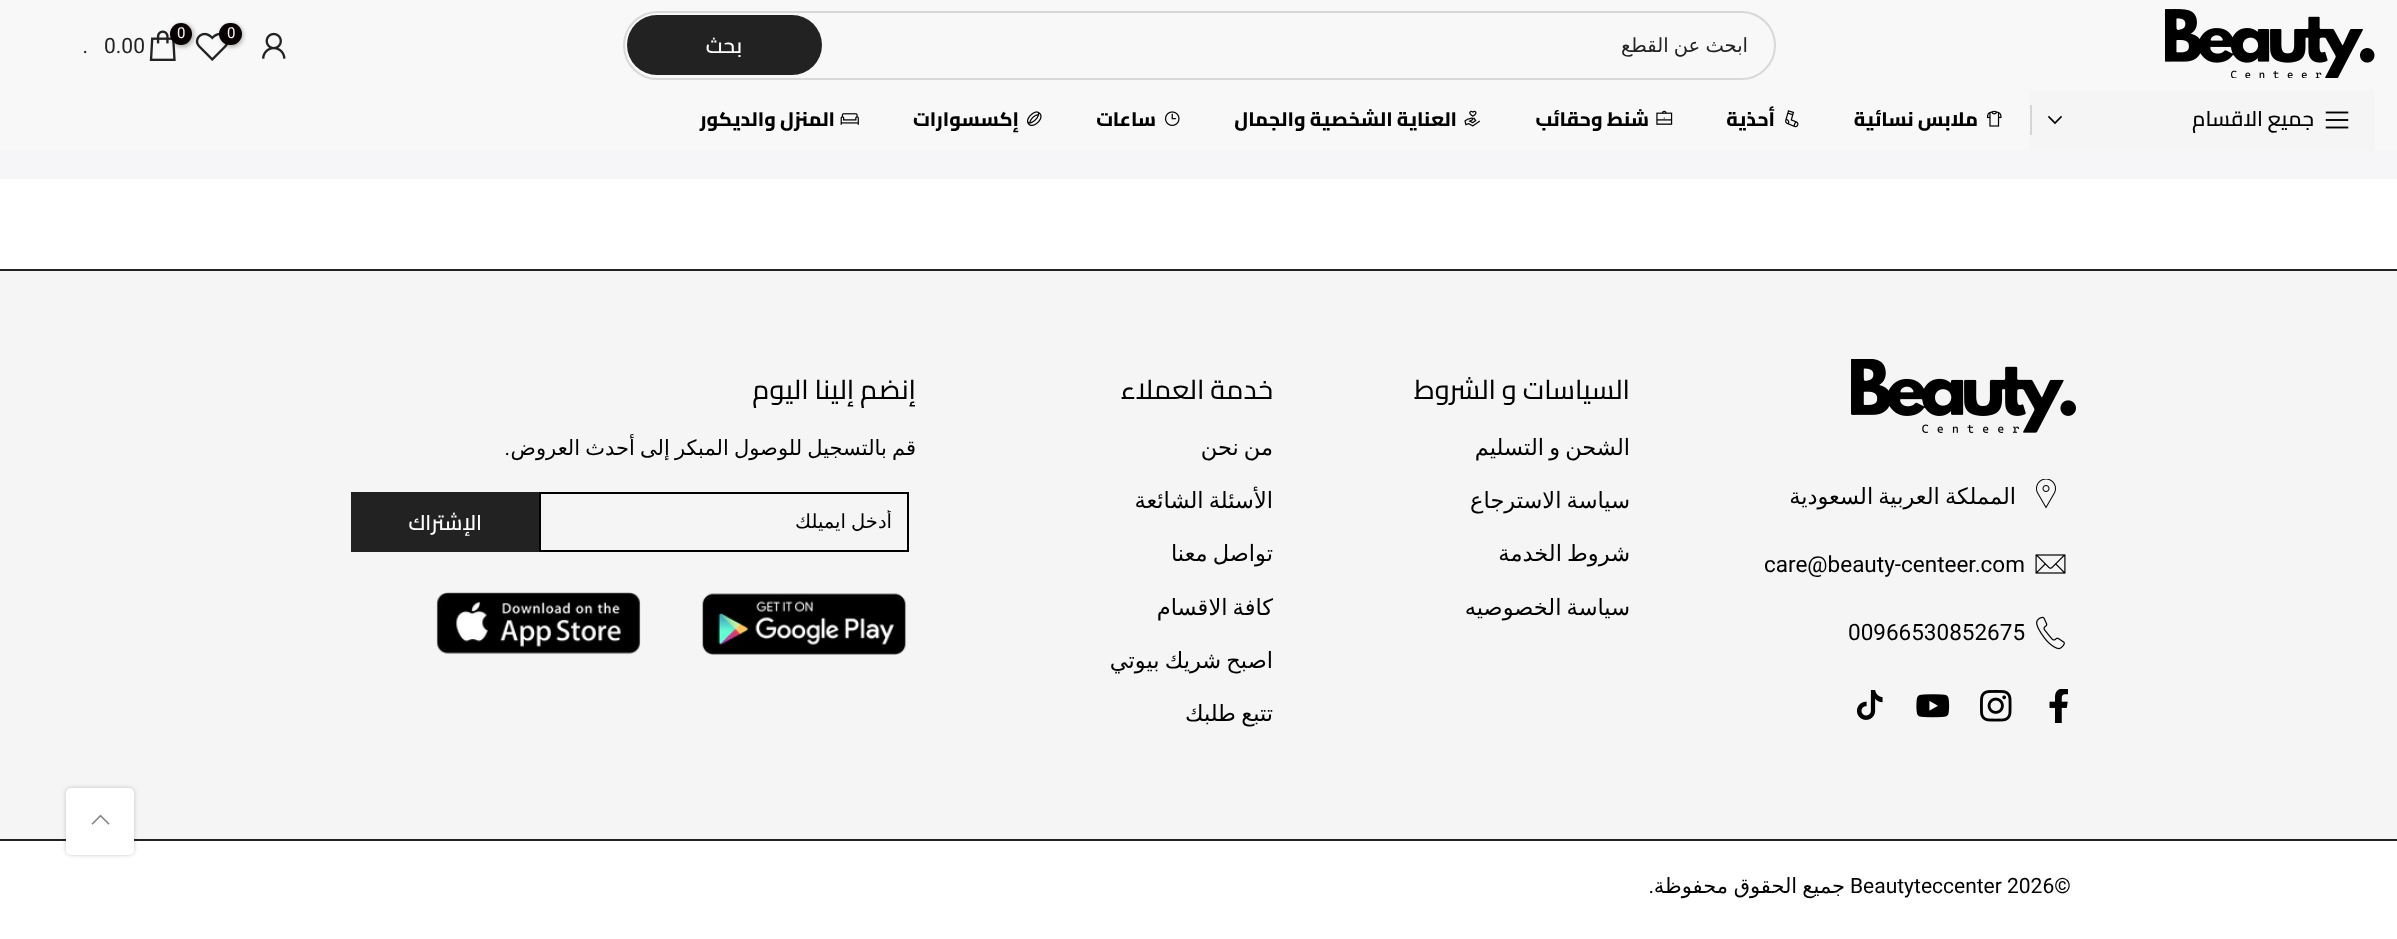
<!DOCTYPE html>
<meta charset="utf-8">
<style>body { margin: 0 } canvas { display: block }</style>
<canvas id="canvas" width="2397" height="939"></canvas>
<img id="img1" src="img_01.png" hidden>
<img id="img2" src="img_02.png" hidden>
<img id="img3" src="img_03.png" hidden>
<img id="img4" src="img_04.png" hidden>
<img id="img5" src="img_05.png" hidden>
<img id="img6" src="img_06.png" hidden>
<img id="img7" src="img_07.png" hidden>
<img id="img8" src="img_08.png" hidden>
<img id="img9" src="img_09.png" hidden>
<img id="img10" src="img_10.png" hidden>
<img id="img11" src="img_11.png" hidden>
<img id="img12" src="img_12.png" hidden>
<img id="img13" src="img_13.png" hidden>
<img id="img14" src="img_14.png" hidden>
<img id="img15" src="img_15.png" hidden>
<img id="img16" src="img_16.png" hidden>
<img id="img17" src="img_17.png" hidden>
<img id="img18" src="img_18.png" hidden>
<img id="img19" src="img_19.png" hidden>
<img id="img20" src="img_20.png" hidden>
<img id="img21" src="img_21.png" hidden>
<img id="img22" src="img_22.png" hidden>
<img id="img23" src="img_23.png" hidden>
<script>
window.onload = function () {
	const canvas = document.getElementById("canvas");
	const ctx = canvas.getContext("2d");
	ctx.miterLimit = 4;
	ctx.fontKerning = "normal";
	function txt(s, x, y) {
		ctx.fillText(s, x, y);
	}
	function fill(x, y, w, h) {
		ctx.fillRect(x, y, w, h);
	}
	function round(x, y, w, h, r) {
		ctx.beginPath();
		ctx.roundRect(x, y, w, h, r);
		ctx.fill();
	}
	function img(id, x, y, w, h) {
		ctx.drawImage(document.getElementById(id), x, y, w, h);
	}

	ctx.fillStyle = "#FFFFFF";
	fill(0, 0, 2397, 939);
	ctx.fillStyle = "#F8F8F8";
	fill(0, 0, 2397, 150);
	img("img1", 2165, 9, 210, 69);
	ctx.beginPath();
	ctx.roundRect(624, 12, 1151, 67, 33.5);
	ctx.strokeStyle = "#D8D8D8";
	ctx.lineWidth = 2;
	ctx.stroke();
	ctx.fillStyle = "#222222";
	round(627, 15, 195, 60, 30);
	img("img2", 262, 32, 24, 27);
	img("img3", 195, 32, 34, 29);
	ctx.fillStyle = "rgba(0, 0, 0, 0.3)";
	ctx.filter = "blur(2px)";
	ctx.beginPath();
	ctx.roundRect(221, 24, 22, 23, 11);
	ctx.fill();
	ctx.filter = "none";
	ctx.fillStyle = "#080101";
	round(219, 23, 23, 22, 11);
	img("img4", 149, 30, 27, 31);
	ctx.fillStyle = "rgba(0, 0, 0, 0.3)";
	ctx.filter = "blur(2px)";
	ctx.beginPath();
	ctx.roundRect(171, 24, 23, 23, 11.5);
	ctx.fill();
	ctx.filter = "none";
	ctx.fillStyle = "#080101";
	ctx.beginPath();
	ctx.arc(181, 34, 11, 0, Math.PI * 2);
	ctx.fill();
	ctx.fillStyle = "#F5F5F5";
	fill(2030, 90, 345, 60);
	img("img5", 2325, 111, 24, 18);
	ctx.beginPath();
	ctx.moveTo(2061, 117);
	ctx.lineTo(2055, 123);
	ctx.lineTo(2049, 117);
	ctx.strokeStyle = "#000000";
	ctx.lineWidth = 1.6;
	ctx.lineCap = "square";
	ctx.stroke();
	ctx.fillStyle = "#D5D5D5";
	fill(2030, 105, 2, 30);
	img("img6", 1986, 110, 16, 17);
	img("img7", 1785, 110, 14, 18);
	img("img8", 1656, 110, 17, 15);
	img("img9", 1464, 110, 16, 17);
	img("img10", 1164, 111, 16, 15);
	img("img11", 1027, 111, 15, 16);
	img("img12", 840, 113, 19, 12);
	ctx.fillStyle = "#F6F6F8";
	fill(0, 150, 2397, 29);
	ctx.fillStyle = "#F5F5F5";
	fill(0, 271, 2397, 568);
	ctx.fillStyle = "#222222";
	fill(0, 269, 2397, 2);
	img("img13", 1851, 359, 225, 74);
	img("img14", 2036, 479, 20, 30);
	img("img15", 2035, 554, 31, 20);
	img("img16", 2036, 616, 29, 34);
	img("img17", 2049, 689, 19, 34);
	img("img18", 1980, 690, 32, 32);
	img("img19", 1916, 694, 34, 24);
	img("img20", 1856, 690, 27, 30);
	ctx.lineWidth = 2;
	ctx.strokeRect(540, 493, 368, 58);
	fill(351, 492, 188, 60);
	img("img21", 702, 593, 205, 62);
	img("img22", 436, 592, 205, 62);
	fill(0, 839, 2397, 2);
	ctx.fillStyle = "rgba(0, 0, 0, 0.2)";
	ctx.filter = "blur(2px)";
	ctx.beginPath();
	ctx.roundRect(66, 788, 68, 67, 5);
	ctx.fill();
	ctx.filter = "none";
	ctx.fillStyle = "#FFFFFF";
	round(66, 788, 68, 67, 5);
	img("img23", 91, 814, 19, 11);
	ctx.wordSpacing = "-1px";
	ctx.direction = "rtl";
	ctx.font = "19.5px DejaVu Sans";
	ctx.fillStyle = "#222222";
	txt("ابحث عن القطع", 1748, 52);
	ctx.wordSpacing = "0px";
	ctx.font = "600 21px Cairo";
	ctx.fillStyle = "#FFFFFF";
	txt("بحث", 742, 53);
	ctx.direction = "ltr";
	ctx.font = "15px Roboto";
	ctx.fillStyle = "#F8F8F8";
	txt("0", 227, 38);
	txt("0", 177, 38);
	ctx.font = "21px Roboto";
	ctx.fillStyle = "#222222";
	txt("0.00", 104, 53);
	ctx.direction = "rtl";
	txt(".", 88, 53);
	ctx.font = "600 21px Cairo";
	ctx.fillStyle = "#000000";
	txt("جميع الاقسام", 2314, 126);
	ctx.font = "800 19.5px Cairo";
	txt("ملابس نسائية", 1978, 126);
	txt("أحذية", 1775, 126);
	txt("شنط وحقائب", 1649, 126);
	txt("العناية الشخصية والجمال", 1457, 126);
	txt("ساعات", 1156, 126);
	txt("إكسسوارات", 1019, 126);
	txt("المنزل والديكور", 835, 126);
	ctx.wordSpacing = "-2px";
	ctx.font = "22.5px DejaVu Sans";
	txt("المملكة العربية السعودية", 2016, 504);
	ctx.wordSpacing = "0px";
	ctx.direction = "ltr";
	ctx.font = "22.5px Roboto";
	txt("care@beauty-centeer.com", 1764, 572);
	txt("00966530852675", 1848, 640);
	ctx.direction = "rtl";
	ctx.font = "500 27px Cairo";
	txt("السياسات و الشروط", 1630, 399);
	ctx.wordSpacing = "-2px";
	ctx.font = "22.5px DejaVu Sans";
	txt("الشحن و التسليم", 1630, 455);
	txt("سياسة الاسترجاع", 1630, 508);
	txt("شروط الخدمة", 1630, 561);
	txt("سياسة الخصوصيه", 1630, 615);
	ctx.wordSpacing = "0px";
	ctx.font = "500 27px Cairo";
	txt("خدمة العملاء", 1273, 399);
	ctx.wordSpacing = "-2px";
	ctx.font = "22.5px DejaVu Sans";
	txt("من نحن", 1273, 455);
	txt("الأسئلة الشائعة", 1273, 508);
	txt("تواصل معنا", 1273, 561);
	txt("كافة الاقسام", 1273, 615);
	txt("اصبح شريك بيوتي", 1273, 668);
	txt("تتبع طلبك", 1273, 721);
	ctx.wordSpacing = "0px";
	ctx.font = "500 27px Cairo";
	txt("إنضم إلينا اليوم", 916, 399);
	ctx.wordSpacing = "-1.5px";
	ctx.font = "21px DejaVu Sans";
	txt("قم بالتسجيل للوصول المبكر إلى أحدث العروض", 916, 455);
	ctx.wordSpacing = "0px";
	ctx.font = "21px Roboto";
	txt(".", 510, 455);
	ctx.save();
	ctx.beginPath();
	ctx.rect(555, 510, 338, 23);
	ctx.clip();
	ctx.wordSpacing = "-1px";
	ctx.font = "19.5px DejaVu Sans";
	txt("أدخل ايميلك", 892, 528);
	ctx.restore();
	ctx.font = "600 21px Cairo";
	ctx.fillStyle = "#FFFFFF";
	txt("الإشتراك", 482, 530);
	ctx.direction = "ltr";
	ctx.font = "21px Roboto";
	ctx.fillStyle = "#000000";
	txt("2026©", 2007, 893);
	txt("Beautyteccenter", 1850, 893);
	ctx.wordSpacing = "-1.5px";
	ctx.direction = "rtl";
	ctx.font = "21px DejaVu Sans";
	txt("جميع الحقوق", 1845, 893);
	ctx.wordSpacing = "0px";
	txt("محفوظة", 1728, 893);
	ctx.font = "21px Roboto";
	txt(".", 1654, 893);
};
</script>
